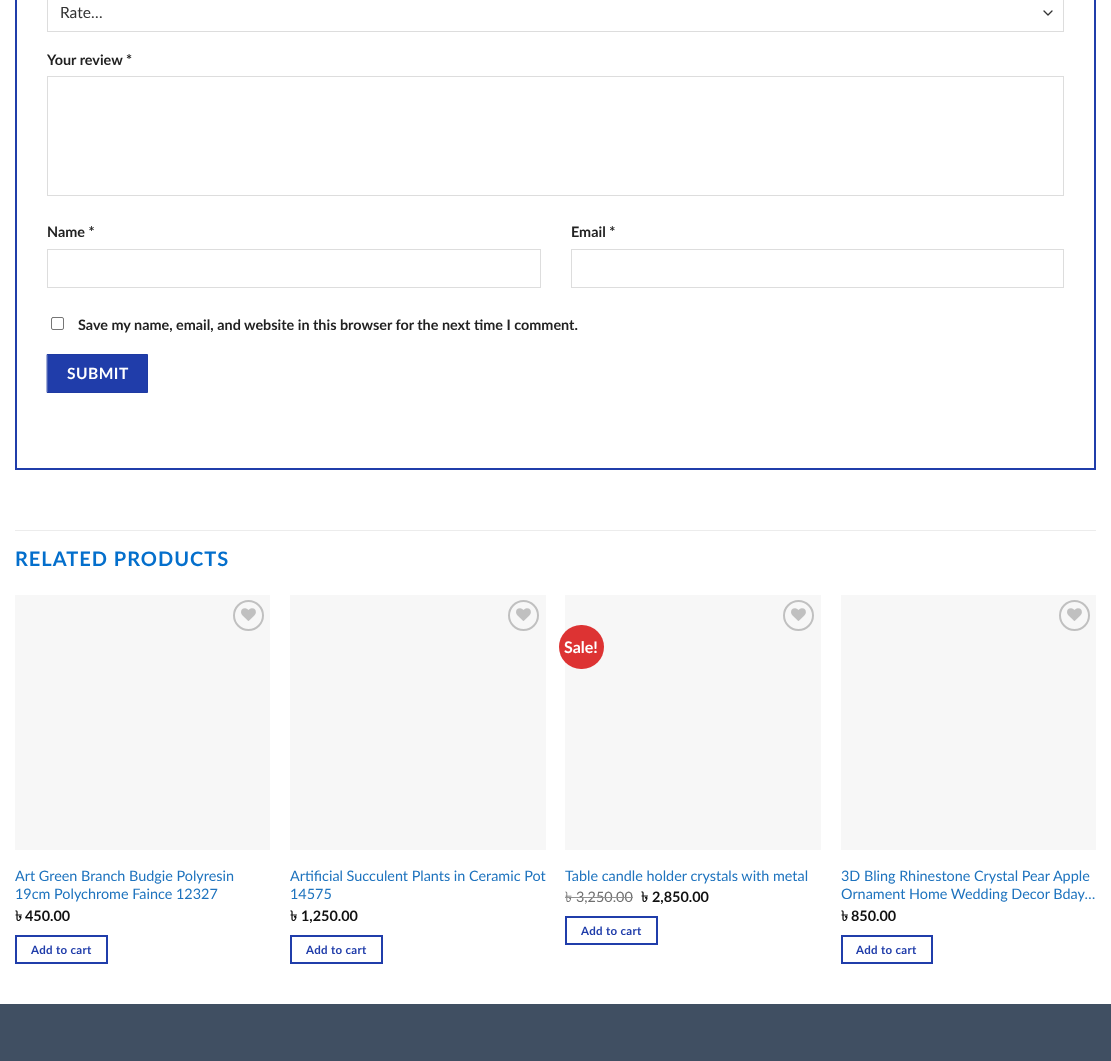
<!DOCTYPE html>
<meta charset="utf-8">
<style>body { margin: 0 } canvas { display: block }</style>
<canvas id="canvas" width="1111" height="1061"></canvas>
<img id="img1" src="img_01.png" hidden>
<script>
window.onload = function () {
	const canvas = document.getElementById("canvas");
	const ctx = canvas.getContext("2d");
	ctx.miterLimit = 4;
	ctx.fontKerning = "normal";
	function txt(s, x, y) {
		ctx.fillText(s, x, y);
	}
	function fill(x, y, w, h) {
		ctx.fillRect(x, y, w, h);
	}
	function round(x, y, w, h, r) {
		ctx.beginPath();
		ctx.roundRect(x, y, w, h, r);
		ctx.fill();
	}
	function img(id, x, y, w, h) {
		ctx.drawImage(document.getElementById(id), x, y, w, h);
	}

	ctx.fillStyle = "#FFFFFF";
	fill(0, 0, 1111, 1061);
	ctx.strokeStyle = "#203DAA";
	ctx.lineWidth = 2;
	ctx.strokeRect(16, -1, 1079, 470);
	ctx.beginPath();
	ctx.moveTo(1044, 11);
	ctx.lineTo(1048, 15);
	ctx.lineTo(1052, 11);
	ctx.strokeStyle = "#333333";
	ctx.lineWidth = 1.3;
	ctx.lineCap = "round";
	ctx.lineJoin = "round";
	ctx.stroke();
	ctx.strokeStyle = "#DDDDDD";
	ctx.lineWidth = 1;
	ctx.lineJoin = "miter";
	ctx.strokeRect(47.5, -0.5, 1016, 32);
	ctx.strokeRect(47.5, 76.5, 1016, 119);
	ctx.strokeRect(47.5, 249.5, 493, 38);
	ctx.strokeRect(571.5, 249.5, 492, 38);
	ctx.beginPath();
	ctx.roundRect(51.5, 317.5, 12, 12, 1.5);
	ctx.strokeStyle = "#767676";
	ctx.stroke();
	ctx.fillStyle = "#203DAA";
	ctx.beginPath();
	ctx.rect(47.5, 354.5, 100, 38);
	ctx.fill();
	ctx.strokeStyle = "#1E3AA2";
	ctx.stroke();
	ctx.fillStyle = "#ECECEC";
	fill(15, 530, 1081, 1);
	ctx.fillStyle = "#F7F7F7";
	fill(15, 595, 255, 255);
	ctx.beginPath();
	ctx.arc(248.5, 615.5, 14.5, 0, Math.PI * 2);
	ctx.strokeStyle = "#C0C0C0";
	ctx.lineWidth = 2;
	ctx.stroke();
	img("img1", 241, 608, 15, 13);
	ctx.strokeStyle = "#203DAA";
	ctx.strokeRect(16, 936, 91, 27);
	fill(290, 595, 256, 255);
	ctx.beginPath();
	ctx.arc(523.5, 615.5, 14.5, 0, Math.PI * 2);
	ctx.strokeStyle = "#C0C0C0";
	ctx.stroke();
	img("img1", 516, 608, 15, 13);
	ctx.strokeStyle = "#203DAA";
	ctx.strokeRect(291, 936, 91, 27);
	fill(565, 595, 256, 255);
	ctx.fillStyle = "#DD3333";
	round(559, 625, 45, 44, 22);
	ctx.beginPath();
	ctx.arc(798.5, 615.5, 14.5, 0, Math.PI * 2);
	ctx.strokeStyle = "#C0C0C0";
	ctx.stroke();
	img("img1", 791, 608, 15, 13);
	ctx.strokeStyle = "#203DAA";
	ctx.strokeRect(566, 917, 91, 27);
	ctx.fillStyle = "#F7F7F7";
	fill(841, 595, 255, 255);
	ctx.beginPath();
	ctx.arc(1074.5, 615.5, 14.5, 0, Math.PI * 2);
	ctx.strokeStyle = "#C0C0C0";
	ctx.stroke();
	img("img1", 1067, 608, 15, 13);
	ctx.strokeStyle = "#203DAA";
	ctx.strokeRect(842, 936, 90, 27);
	ctx.fillStyle = "#404F62";
	fill(0, 1004, 1111, 57);
	ctx.font = "15.5px Lato";
	ctx.fillStyle = "#333333";
	txt("Rate…", 60, 18);
	ctx.font = "bold 14.4px Lato";
	ctx.fillStyle = "#222222";
	txt("Your review *", 47, 65);
	txt("Name *", 47, 237);
	txt("Email *", 571, 237);
	txt("Save my name, email, and website in this browser for the next time I comment.", 78, 330);
	ctx.letterSpacing = "0.5px";
	ctx.font = "bold 15.5px Lato";
	ctx.fillStyle = "#FFFFFF";
	txt("SUBMIT", 67, 379);
	ctx.letterSpacing = "1px";
	ctx.font = "bold 20px Lato";
	ctx.fillStyle = "#046FCC";
	txt("RELATED PRODUCTS", 15, 566);
	ctx.letterSpacing = "0px";
	ctx.font = "14.4px Lato";
	ctx.fillStyle = "#1E73BE";
	txt("Art Green Branch Budgie Polyresin", 15, 881);
	txt("19cm Polychrome Faince 12327", 15, 899);
	ctx.font = "bold 14.4px Lohit Bengali";
	ctx.fillStyle = "#111111";
	txt("৳", 15, 921);
	ctx.font = "bold 14.4px Lato";
	txt("450.00", 25, 921);
	ctx.letterSpacing = "0.3px";
	ctx.font = "bold 11.5px Lato";
	ctx.fillStyle = "#203DAA";
	txt("Add to cart", 31, 954);
	ctx.letterSpacing = "0px";
	ctx.font = "14.4px Lato";
	ctx.fillStyle = "#1E73BE";
	txt("Artificial Succulent Plants in Ceramic Pot", 290, 881);
	txt("14575", 290, 899);
	ctx.font = "bold 14.4px Lohit Bengali";
	ctx.fillStyle = "#111111";
	txt("৳", 290, 921);
	ctx.font = "bold 14.4px Lato";
	txt("1,250.00", 301, 921);
	ctx.letterSpacing = "0.3px";
	ctx.font = "bold 11.5px Lato";
	ctx.fillStyle = "#203DAA";
	txt("Add to cart", 306, 954);
	ctx.letterSpacing = "0px";
	ctx.font = "bold 16px Lato";
	ctx.fillStyle = "#FFFFFF";
	txt("Sale!", 564, 653);
	ctx.font = "14.4px Lato";
	ctx.fillStyle = "#1E73BE";
	txt("Table candle holder crystals with metal", 565, 881);
	ctx.font = "14.4px Lohit Bengali";
	ctx.fillStyle = "#707070";
	txt("৳", 565, 902);
	ctx.font = "14.4px Lato";
	txt("3,250.00", 576, 902);
	ctx.fillStyle = "#929292";
	fill(565, 897, 11, 1);
	fill(576, 897, 57, 1);
	ctx.font = "bold 14.4px Lohit Bengali";
	ctx.fillStyle = "#111111";
	txt("৳", 641, 902);
	ctx.font = "bold 14.4px Lato";
	txt("2,850.00", 652, 902);
	ctx.letterSpacing = "0.3px";
	ctx.font = "bold 11.5px Lato";
	ctx.fillStyle = "#203DAA";
	txt("Add to cart", 581, 935);
	ctx.letterSpacing = "0px";
	ctx.font = "14.4px Lato";
	ctx.fillStyle = "#1E73BE";
	txt("3D Bling Rhinestone Crystal Pear Apple", 841, 881);
	txt("Ornament Home Wedding Decor Bday…", 841, 899);
	ctx.font = "bold 14.4px Lohit Bengali";
	ctx.fillStyle = "#111111";
	txt("৳", 841, 921);
	ctx.font = "bold 14.4px Lato";
	txt("850.00", 851, 921);
	ctx.letterSpacing = "0.3px";
	ctx.font = "bold 11.5px Lato";
	ctx.fillStyle = "#203DAA";
	txt("Add to cart", 856, 954);
};
</script>
